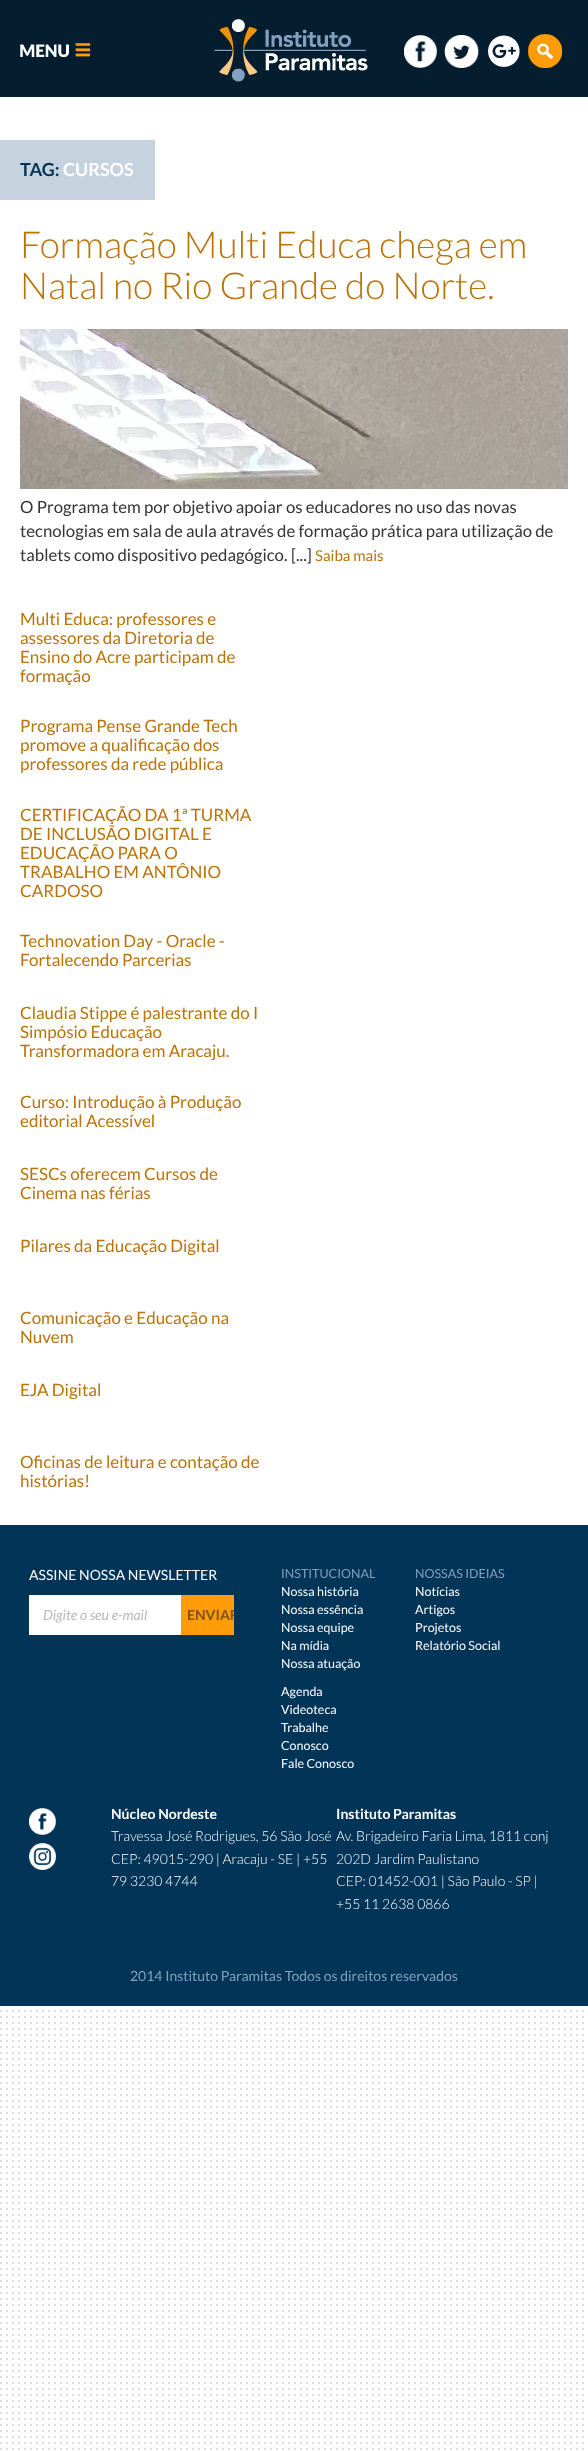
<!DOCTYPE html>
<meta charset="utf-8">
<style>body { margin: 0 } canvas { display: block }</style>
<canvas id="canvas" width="588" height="2451"></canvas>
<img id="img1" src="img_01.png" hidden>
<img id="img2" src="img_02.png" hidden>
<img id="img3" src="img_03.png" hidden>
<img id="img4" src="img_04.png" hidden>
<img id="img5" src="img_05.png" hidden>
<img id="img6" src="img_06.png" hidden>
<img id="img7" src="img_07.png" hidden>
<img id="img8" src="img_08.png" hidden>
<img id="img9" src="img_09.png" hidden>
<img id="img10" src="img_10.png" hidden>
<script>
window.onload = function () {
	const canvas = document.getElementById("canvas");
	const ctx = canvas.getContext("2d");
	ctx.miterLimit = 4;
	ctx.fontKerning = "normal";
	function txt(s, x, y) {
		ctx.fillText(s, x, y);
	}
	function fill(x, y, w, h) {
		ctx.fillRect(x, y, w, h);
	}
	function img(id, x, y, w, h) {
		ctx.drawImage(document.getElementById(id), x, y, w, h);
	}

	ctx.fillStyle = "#FFFFFF";
	fill(0, 0, 588, 2451);
	img("img1", 0, 2006, 584, 444);
	ctx.fillStyle = "#041D2F";
	fill(0, 0, 588, 97);
	img("img2", 20, 43, 71, 14);
	img("img3", 214, 19, 154, 63);
	img("img4", 404, 35, 33, 33);
	img("img5", 444, 35, 35, 33);
	img("img6", 488, 35, 32, 32);
	img("img7", 528, 34, 34, 34);
	ctx.fillStyle = "#C7D2DF";
	fill(0, 140, 155, 60);
	img("img8", 20, 329, 548, 160);
	ctx.fillStyle = "#023457";
	fill(0, 1525, 588, 481);
	ctx.fillStyle = "#FFFFFF";
	fill(29, 1595, 152, 40);
	ctx.fillStyle = "#FF9C07";
	fill(181, 1595, 53, 40);
	img("img9", 29, 1808, 27, 27);
	img("img10", 29, 1843, 27, 27);
	ctx.font = "bold 18px Lato";
	ctx.fillStyle = "#023457";
	txt("TAG:", 20, 176);
	ctx.fillStyle = "#FFFFFF";
	txt("CURSOS", 63, 176);
	ctx.font = "300 37px Lato";
	ctx.fillStyle = "#BA7308";
	txt("Formação Multi Educa chega em", 20, 258);
	txt("Natal no Rio Grande do Norte.", 20, 299);
	ctx.font = "16.8px Lato";
	ctx.fillStyle = "#333333";
	txt("O Programa tem por objetivo apoiar", 20, 513);
	txt("os educadores no uso das novas", 286, 513);
	txt("tecnologias em sala de aula através de formação prática para utilização de", 20, 537);
	txt("tablets como dispositivo pedagógico.", 20, 561);
	txt("[...]", 291, 561);
	ctx.font = "15px Lato";
	ctx.fillStyle = "#BA7308";
	txt("Saiba mais", 315, 561);
	ctx.font = "17px Lato";
	txt("Multi Educa: professores e", 20, 625);
	txt("assessores da Diretoria de", 20, 644);
	txt("Ensino do Acre participam de", 20, 663);
	txt("formação", 20, 682);
	txt("Programa Pense Grande Tech", 20, 732);
	txt("promove a qualificação dos", 20, 751);
	txt("professores da rede pública", 20, 770);
	txt("CERTIFICAÇÃO DA 1ª TURMA", 20, 821);
	txt("DE INCLUSÃO DIGITAL E", 20, 840);
	txt("EDUCAÇÃO PARA O", 20, 859);
	txt("TRABALHO EM ANTÔNIO", 20, 878);
	txt("CARDOSO", 20, 897);
	txt("Technovation Day - Oracle -", 20, 947);
	txt("Fortalecendo Parcerias", 20, 966);
	txt("Claudia Stippe é palestrante do I", 20, 1019);
	txt("Simpósio Educação", 20, 1038);
	txt("Transformadora em Aracaju.", 20, 1057);
	txt("Curso: Introdução à Produção", 20, 1108);
	txt("editorial Acessível", 20, 1127);
	txt("SESCs oferecem Cursos de", 20, 1180);
	txt("Cinema nas férias", 20, 1199);
	txt("Pilares da Educação Digital", 20, 1252);
	txt("Comunicação e Educação na", 20, 1324);
	txt("Nuvem", 20, 1343);
	txt("EJA Digital", 20, 1396);
	txt("Oficinas de leitura e contação de", 20, 1468);
	txt("histórias!", 20, 1487);
	ctx.font = "14px Lato";
	ctx.fillStyle = "#FFFFFF";
	txt("ASSINE NOSSA NEWSLETTER", 29, 1580);
	ctx.font = "italic 14px Lato";
	ctx.fillStyle = "#B7B7B7";
	txt("Digite o seu e-mail", 43, 1620);
	ctx.save();
	ctx.beginPath();
	ctx.rect(181, 1595, 53, 40);
	ctx.clip();
	ctx.font = "bold 14px Lato";
	ctx.fillStyle = "#7C5315";
	txt("ENVIAR", 187, 1620);
	ctx.restore();
	ctx.font = "12.5px Lato";
	ctx.fillStyle = "#83A0C1";
	txt("INSTITUCIONAL", 281, 1578);
	ctx.fillStyle = "#FFFFFF";
	txt("Nossa história", 281, 1596);
	txt("Nossa essência", 281, 1614);
	txt("Nossa equipe", 281, 1632);
	txt("Na mídia", 281, 1650);
	txt("Nossa atuação", 281, 1668);
	ctx.fillStyle = "#83A0C1";
	txt("NOSSAS IDEIAS", 415, 1578);
	ctx.fillStyle = "#FFFFFF";
	txt("Notícias", 415, 1596);
	txt("Artigos", 415, 1614);
	txt("Projetos", 415, 1632);
	txt("Relatório Social", 415, 1650);
	txt("Agenda", 281, 1696);
	txt("Videoteca", 281, 1714);
	txt("Trabalhe", 281, 1732);
	txt("Conosco", 281, 1750);
	txt("Fale Conosco", 281, 1768);
	ctx.font = "bold 14px Lato";
	txt("Núcleo Nordeste", 111, 1819);
	ctx.font = "300 14px Lato";
	txt("Travessa José Rodrigues, 56 São José", 111, 1841);
	txt("CEP: 49015-290 | Aracaju - SE | +55", 111, 1864);
	txt("79 3230 4744", 111, 1886);
	ctx.font = "bold 14px Lato";
	txt("Instituto Paramitas", 336, 1819);
	ctx.font = "300 14px Lato";
	txt("Av. Brigadeiro Faria Lima, 1811 conj", 336, 1841);
	txt("202D Jardim Paulistano", 336, 1864);
	txt("CEP: 01452-001 | São Paulo - SP |", 336, 1886);
	txt("+55 11 2638 0866", 336, 1909);
	ctx.font = "14px Lato";
	ctx.fillStyle = "#83A0C1";
	txt("2014 Instituto Paramitas Todos os direitos reservados", 130, 1981);
};
</script>
